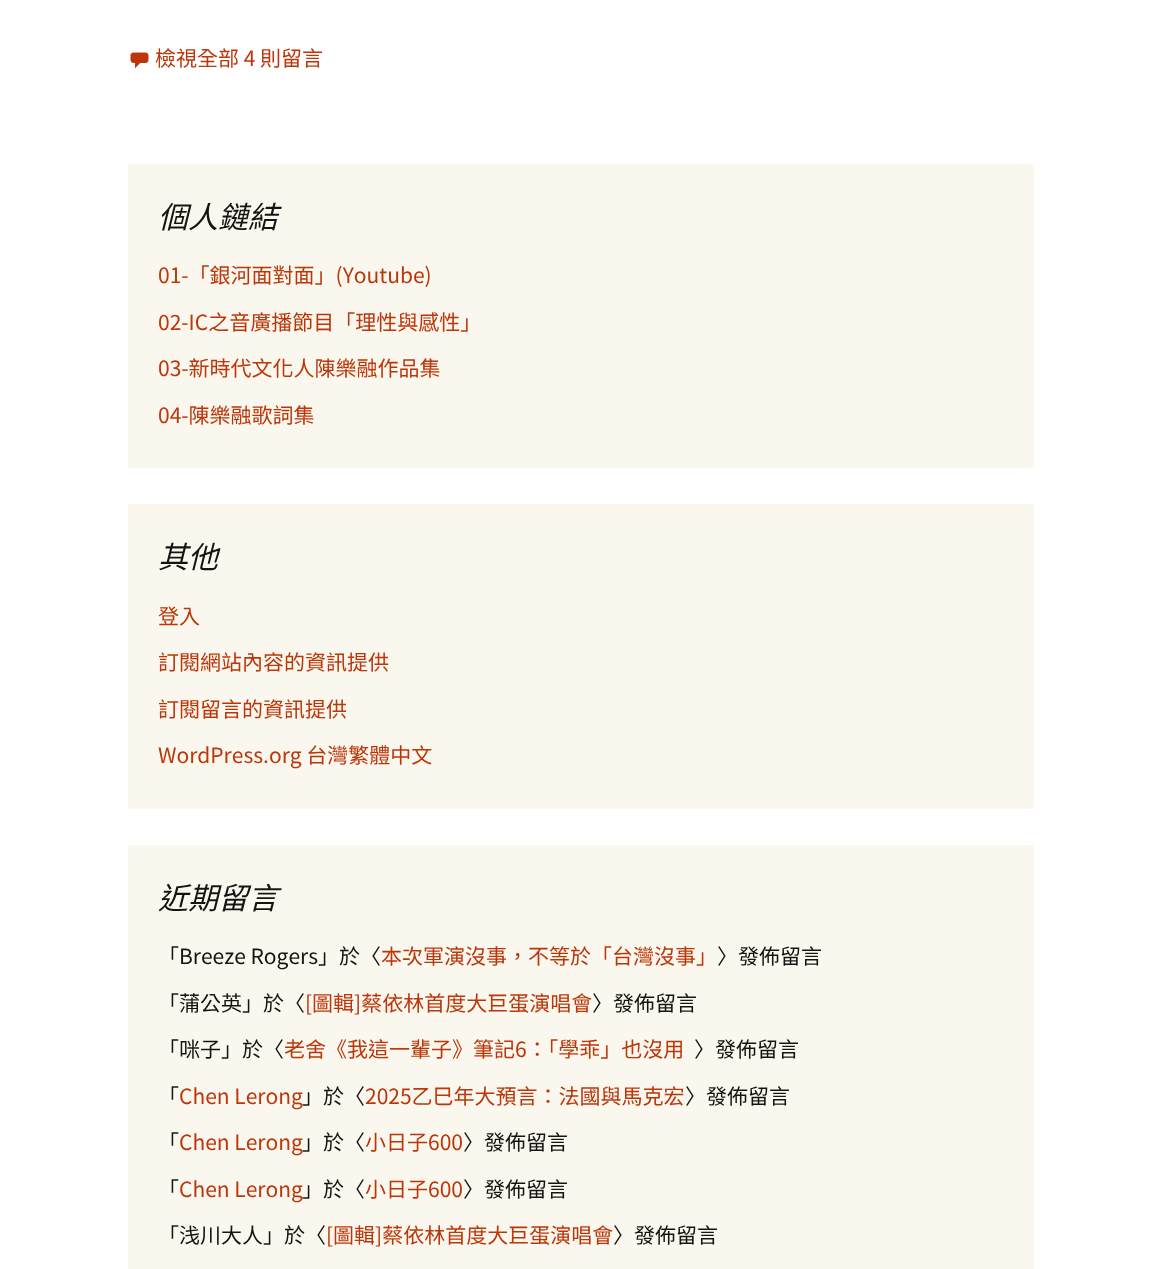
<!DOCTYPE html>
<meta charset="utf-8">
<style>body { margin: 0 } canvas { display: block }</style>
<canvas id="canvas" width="1161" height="1269"></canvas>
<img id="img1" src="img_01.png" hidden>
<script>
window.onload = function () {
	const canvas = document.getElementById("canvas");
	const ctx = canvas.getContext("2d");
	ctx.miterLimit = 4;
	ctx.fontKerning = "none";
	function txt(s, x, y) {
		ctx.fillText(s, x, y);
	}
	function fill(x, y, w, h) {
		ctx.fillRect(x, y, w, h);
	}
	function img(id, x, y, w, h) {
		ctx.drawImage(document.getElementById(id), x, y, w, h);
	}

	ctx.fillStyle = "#FFFFFF";
	fill(0, 0, 1161, 1269);
	img("img1", 130, 52, 19, 17);
	ctx.fillStyle = "#FAF8EE";
	fill(128, 164, 906, 304);
	fill(128, 504, 906, 305);
	fill(128, 845, 906, 424);
	ctx.font = "100 21px Noto Sans TC";
	ctx.fillStyle = "#BC360A";
	txt("檢視全部 4 則留言", 155, 66);
	ctx.font = "italic 100 30px Noto Sans TC";
	ctx.fillStyle = "#141412";
	txt("個人鏈結", 158, 228);
	ctx.font = "100 21px Noto Sans TC";
	ctx.fillStyle = "#BC360A";
	txt("01-「銀河面對面」(Youtube)", 158, 283);
	txt("02-IC之音廣播節目「理性與感性」", 158, 330);
	txt("03-新時代文化人陳樂融作品集", 158, 376);
	txt("04-陳樂融歌詞集", 158, 423);
	ctx.font = "italic 100 30px Noto Sans TC";
	ctx.fillStyle = "#141412";
	txt("其他", 158, 568);
	ctx.font = "100 21px Noto Sans TC";
	ctx.fillStyle = "#BC360A";
	txt("登入", 158, 624);
	txt("訂閱網站內容的資訊提供", 158, 670);
	txt("訂閱留言的資訊提供", 158, 717);
	txt("WordPress.org 台灣繁體中文", 158, 763);
	ctx.font = "italic 100 30px Noto Sans TC";
	ctx.fillStyle = "#141412";
	txt("近期留言", 158, 909);
	ctx.font = "100 21px Noto Sans TC";
	txt("「Breeze Rogers」於〈", 158, 964);
	ctx.fillStyle = "#BC360A";
	txt("本次軍演沒事，不等於「台灣沒事」", 381, 964);
	ctx.fillStyle = "#141412";
	txt("〉發佈留言", 717, 964);
	txt("「蒲公英」於〈", 158, 1011);
	ctx.fillStyle = "#BC360A";
	txt("[圖輯]蔡依林首度大巨蛋演唱會", 305, 1011);
	ctx.fillStyle = "#141412";
	txt("〉發佈留言", 592, 1011);
	txt("「咪子」於〈", 158, 1057);
	ctx.fillStyle = "#BC360A";
	txt("老舍《我這一輩子》筆記6：「學乖」也沒用", 284, 1057);
	ctx.fillStyle = "#141412";
	txt("〉發佈留言", 694, 1057);
	txt("「", 158, 1104);
	ctx.fillStyle = "#BC360A";
	txt("Chen Lerong", 179, 1104);
	ctx.fillStyle = "#141412";
	txt("」於〈", 302, 1104);
	ctx.fillStyle = "#BC360A";
	txt("2025乙巳年大預言：法國與馬克宏", 365, 1104);
	ctx.fillStyle = "#141412";
	txt("〉發佈留言", 685, 1104);
	txt("「", 158, 1150);
	ctx.fillStyle = "#BC360A";
	txt("Chen Lerong", 179, 1150);
	ctx.fillStyle = "#141412";
	txt("」於〈", 302, 1150);
	ctx.fillStyle = "#BC360A";
	txt("小日子600", 365, 1150);
	ctx.fillStyle = "#141412";
	txt("〉發佈留言", 463, 1150);
	txt("「", 158, 1197);
	ctx.fillStyle = "#BC360A";
	txt("Chen Lerong", 179, 1197);
	ctx.fillStyle = "#141412";
	txt("」於〈", 302, 1197);
	ctx.fillStyle = "#BC360A";
	txt("小日子600", 365, 1197);
	ctx.fillStyle = "#141412";
	txt("〉發佈留言", 463, 1197);
	txt("「", 158, 1243);
	ctx.font = "21px Noto Sans CJK TC";
	txt("浅川大人", 179, 1243);
	ctx.font = "100 21px Noto Sans TC";
	txt("」於〈", 263, 1243);
	ctx.fillStyle = "#BC360A";
	txt("[圖輯]蔡依林首度大巨蛋演唱會", 326, 1243);
	ctx.fillStyle = "#141412";
	txt("〉發佈留言", 613, 1243);
};
</script>
